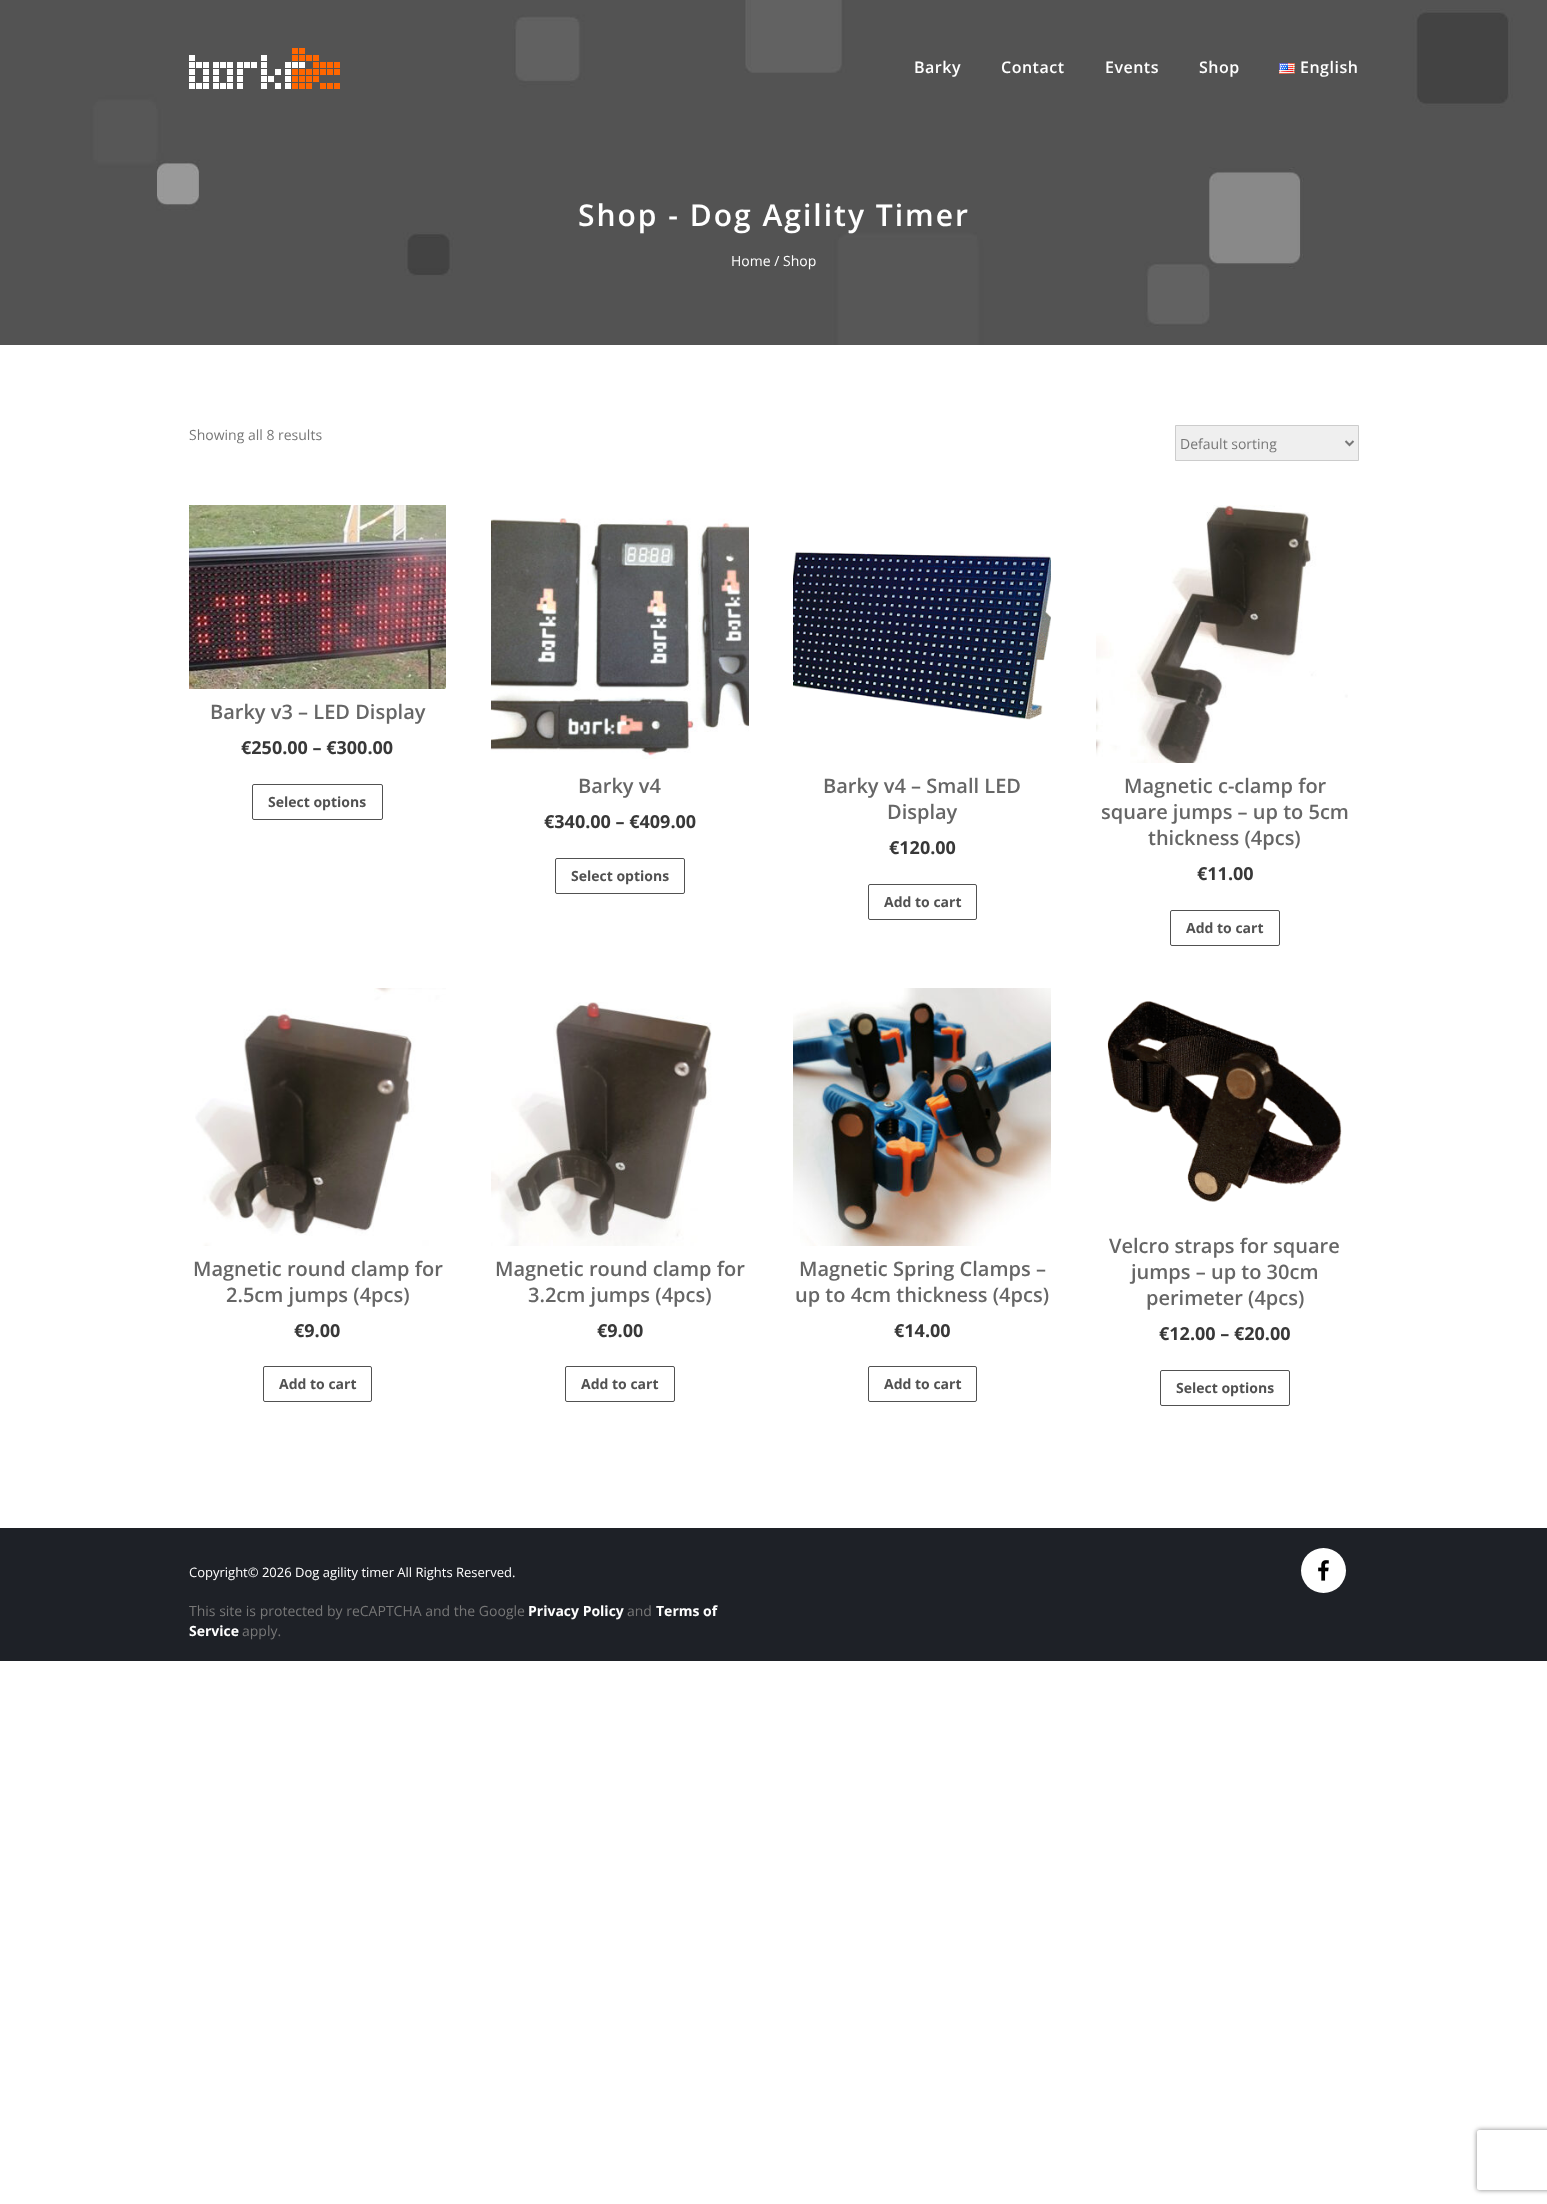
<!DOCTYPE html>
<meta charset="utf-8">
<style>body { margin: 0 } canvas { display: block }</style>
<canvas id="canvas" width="1547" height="2204"></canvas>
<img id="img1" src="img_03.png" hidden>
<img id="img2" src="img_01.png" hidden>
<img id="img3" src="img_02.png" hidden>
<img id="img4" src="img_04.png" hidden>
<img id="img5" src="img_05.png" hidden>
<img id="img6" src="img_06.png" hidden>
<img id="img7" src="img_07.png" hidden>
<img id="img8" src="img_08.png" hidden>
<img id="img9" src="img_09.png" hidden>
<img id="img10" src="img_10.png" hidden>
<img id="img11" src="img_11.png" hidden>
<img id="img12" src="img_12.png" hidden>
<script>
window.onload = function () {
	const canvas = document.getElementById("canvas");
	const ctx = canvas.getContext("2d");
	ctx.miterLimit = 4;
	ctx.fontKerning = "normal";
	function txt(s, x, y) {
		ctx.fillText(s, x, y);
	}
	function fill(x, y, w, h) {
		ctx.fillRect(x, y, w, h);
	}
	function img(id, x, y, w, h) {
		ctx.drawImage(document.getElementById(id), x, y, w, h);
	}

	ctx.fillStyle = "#FFFFFF";
	fill(0, 0, 1547, 2204);
	img("img1", 0, 0, 1547, 345);
	img("img2", 189, 48, 151, 41);
	img("img3", 1279, 63, 16, 11);
	ctx.fillStyle = "#EFEFEF";
	ctx.beginPath();
	ctx.rect(1175.5, 425.5, 183, 35);
	ctx.fill();
	ctx.strokeStyle = "#CCCCCC";
	ctx.stroke();
	ctx.beginPath();
	ctx.moveTo(1345.5, 441);
	ctx.lineTo(1349.5, 445);
	ctx.lineTo(1353.5, 441);
	ctx.strokeStyle = "#777777";
	ctx.lineWidth = 2;
	ctx.stroke();
	img("img4", 189, 505, 257, 184);
	ctx.beginPath();
	ctx.roundRect(252.5, 784.5, 130, 35, 1.5);
	ctx.strokeStyle = "#515151";
	ctx.lineWidth = 1;
	ctx.stroke();
	img("img5", 491, 518, 258, 241);
	ctx.beginPath();
	ctx.roundRect(555.5, 858.5, 129, 35, 1.5);
	ctx.stroke();
	img("img6", 793, 552, 258, 168);
	ctx.beginPath();
	ctx.roundRect(868.5, 884.5, 108, 35, 1.5);
	ctx.stroke();
	img("img7", 1096, 505, 252, 258);
	ctx.beginPath();
	ctx.roundRect(1170.5, 910.5, 109, 35, 1.5);
	ctx.stroke();
	img("img8", 195, 988, 251, 258);
	ctx.beginPath();
	ctx.roundRect(263.5, 1366.5, 108, 35, 1.5);
	ctx.stroke();
	img("img9", 491, 1002, 221, 244);
	ctx.beginPath();
	ctx.roundRect(565.5, 1366.5, 109, 35, 1.5);
	ctx.stroke();
	img("img10", 793, 988, 258, 258);
	ctx.beginPath();
	ctx.roundRect(868.5, 1366.5, 108, 35, 1.5);
	ctx.stroke();
	img("img11", 1107, 1001, 235, 201);
	ctx.beginPath();
	ctx.roundRect(1160.5, 1370.5, 129, 35, 1.5);
	ctx.stroke();
	ctx.fillStyle = "#1E2127";
	fill(0, 1528, 1547, 133);
	ctx.fillStyle = "#FFFFFF";
	ctx.beginPath();
	ctx.arc(1323.5, 1570.5, 22.5, 0, Math.PI * 2);
	ctx.fill();
	img("img12", 1318, 1560, 11, 21);
	ctx.save();
	ctx.beginPath();
	ctx.moveTo(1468, 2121);
	ctx.lineTo(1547, 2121);
	ctx.lineTo(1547, 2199);
	ctx.lineTo(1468, 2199);
	ctx.closePath();
	ctx.moveTo(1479, 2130);
	ctx.lineTo(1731, 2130);
	ctx.bezierCurveTo(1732, 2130, 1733, 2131, 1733, 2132);
	ctx.lineTo(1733, 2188);
	ctx.bezierCurveTo(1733, 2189, 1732, 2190, 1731, 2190);
	ctx.lineTo(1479, 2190);
	ctx.bezierCurveTo(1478, 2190, 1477, 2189, 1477, 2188);
	ctx.lineTo(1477, 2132);
	ctx.bezierCurveTo(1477, 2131, 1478, 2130, 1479, 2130);
	ctx.closePath();
	ctx.clip("evenodd");
	ctx.fillStyle = "#808080";
	ctx.filter = "blur(2.5px)";
	ctx.beginPath();
	ctx.roundRect(1477, 2130, 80, 60, 2);
	ctx.fill();
	ctx.filter = "none";
	ctx.restore();
	ctx.letterSpacing = "0.5px";
	ctx.font = "600 16px Open Sans";
	txt("Barky", 914, 73);
	txt("Contact", 1001, 73);
	txt("Events", 1105, 73);
	txt("Shop", 1199, 73);
	txt("English", 1300, 73);
	ctx.letterSpacing = "2px";
	ctx.font = "600 30px Open Sans";
	txt("Shop - Dog Agility Timer", 578, 226);
	ctx.letterSpacing = "0px";
	ctx.font = "14px Open Sans";
	txt("Home / Shop", 731, 266);
	ctx.fillStyle = "#777777";
	txt("Showing all 8 results", 189, 440);
	txt("Default sorting", 1180, 449);
	ctx.font = "600 20px Open Sans";
	ctx.fillStyle = "#666666";
	txt("Barky v3 – LED Display", 210, 719);
	ctx.font = "bold 18px Open Sans";
	ctx.fillStyle = "#383838";
	txt("€250.00 – €300.00", 241, 754);
	ctx.font = "bold 14px Open Sans";
	ctx.fillStyle = "#515151";
	txt("Select options", 268, 807);
	ctx.font = "600 20px Open Sans";
	ctx.fillStyle = "#666666";
	txt("Barky v4", 578, 793);
	ctx.font = "bold 18px Open Sans";
	ctx.fillStyle = "#383838";
	txt("€340.00 – €409.00", 544, 828);
	ctx.font = "bold 14px Open Sans";
	ctx.fillStyle = "#515151";
	txt("Select options", 571, 881);
	ctx.font = "600 20px Open Sans";
	ctx.fillStyle = "#666666";
	txt("Barky v4 – Small LED", 823, 793);
	txt("Display", 887, 819);
	ctx.font = "bold 18px Open Sans";
	ctx.fillStyle = "#383838";
	txt("€120.00", 889, 854);
	ctx.font = "bold 14px Open Sans";
	ctx.fillStyle = "#515151";
	txt("Add to cart", 884, 907);
	ctx.font = "600 20px Open Sans";
	ctx.fillStyle = "#666666";
	txt("Magnetic c-clamp for", 1124, 793);
	txt("square jumps – up to 5cm", 1101, 819);
	txt("thickness (4pcs)", 1148, 845);
	ctx.font = "bold 18px Open Sans";
	ctx.fillStyle = "#383838";
	txt("€11.00", 1197, 880);
	ctx.font = "bold 14px Open Sans";
	ctx.fillStyle = "#515151";
	txt("Add to cart", 1186, 933);
	ctx.font = "600 20px Open Sans";
	ctx.fillStyle = "#666666";
	txt("Magnetic round clamp for", 193, 1276);
	txt("2.5cm jumps (4pcs)", 226, 1302);
	ctx.font = "bold 18px Open Sans";
	ctx.fillStyle = "#383838";
	txt("€9.00", 294, 1337);
	ctx.font = "bold 14px Open Sans";
	ctx.fillStyle = "#515151";
	txt("Add to cart", 279, 1389);
	ctx.font = "600 20px Open Sans";
	ctx.fillStyle = "#666666";
	txt("Magnetic round clamp for", 495, 1276);
	txt("3.2cm jumps (4pcs)", 528, 1302);
	ctx.font = "bold 18px Open Sans";
	ctx.fillStyle = "#383838";
	txt("€9.00", 597, 1337);
	ctx.font = "bold 14px Open Sans";
	ctx.fillStyle = "#515151";
	txt("Add to cart", 581, 1389);
	ctx.font = "600 20px Open Sans";
	ctx.fillStyle = "#666666";
	txt("Magnetic Spring Clamps –", 799, 1276);
	txt("up to 4cm thickness (4pcs)", 795, 1302);
	ctx.font = "bold 18px Open Sans";
	ctx.fillStyle = "#383838";
	txt("€14.00", 894, 1337);
	ctx.font = "bold 14px Open Sans";
	ctx.fillStyle = "#515151";
	txt("Add to cart", 884, 1389);
	ctx.font = "600 20px Open Sans";
	ctx.fillStyle = "#666666";
	txt("Velcro straps for square", 1109, 1253);
	txt("jumps – up to 30cm", 1131, 1279);
	txt("perimeter (4pcs)", 1146, 1305);
	ctx.font = "bold 18px Open Sans";
	ctx.fillStyle = "#383838";
	txt("€12.00 – €20.00", 1159, 1340);
	ctx.font = "bold 14px Open Sans";
	ctx.fillStyle = "#515151";
	txt("Select options", 1176, 1393);
	ctx.font = "13px Open Sans";
	ctx.fillStyle = "#FFFFFF";
	txt("Copyright© 2026 Dog agility timer All Rights Reserved.", 189, 1577);
	ctx.font = "14px Open Sans";
	ctx.fillStyle = "#777777";
	txt("This site is protected by reCAPTCHA and the Google", 189, 1616);
	ctx.font = "bold 14px Open Sans";
	ctx.fillStyle = "#FFFFFF";
	txt("Privacy Policy", 528, 1616);
	ctx.font = "14px Open Sans";
	ctx.fillStyle = "#777777";
	txt("and", 627, 1616);
	ctx.font = "bold 14px Open Sans";
	ctx.fillStyle = "#FFFFFF";
	txt("Terms of", 656, 1616);
	txt("Service", 189, 1636);
	ctx.font = "14px Open Sans";
	ctx.fillStyle = "#777777";
	txt("apply.", 242, 1636);
};
</script>
